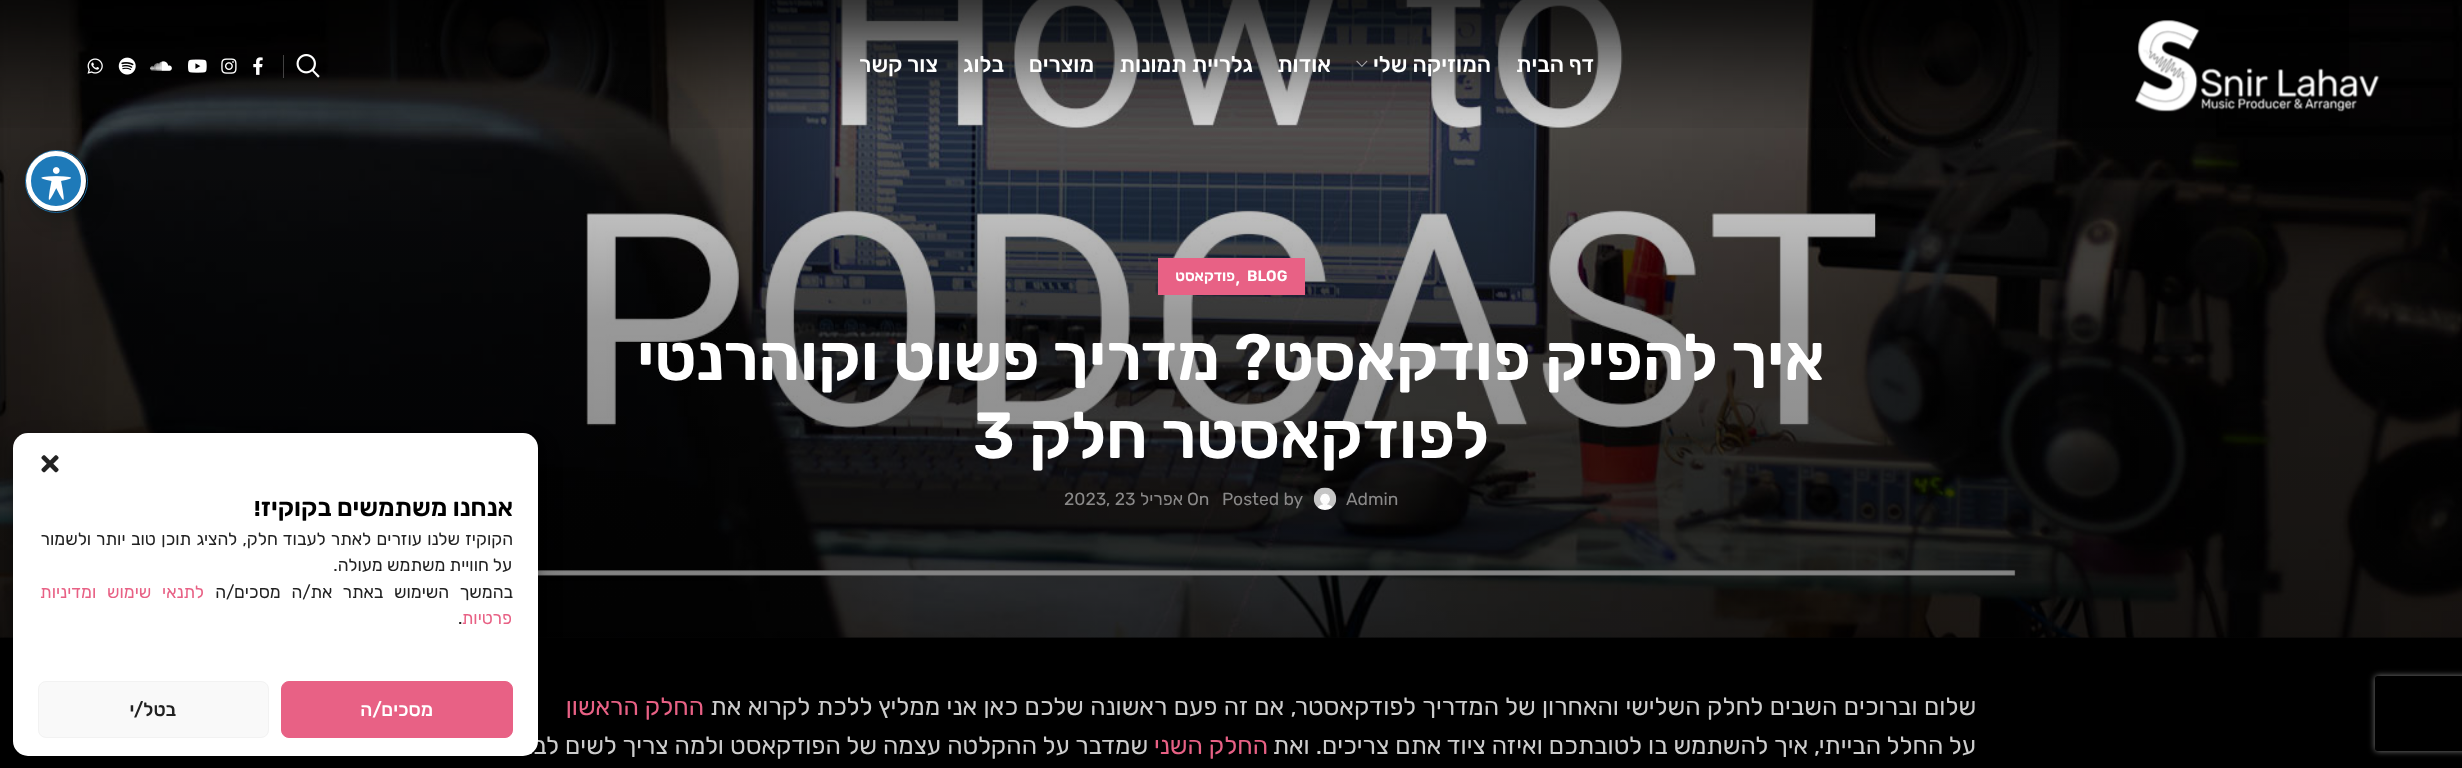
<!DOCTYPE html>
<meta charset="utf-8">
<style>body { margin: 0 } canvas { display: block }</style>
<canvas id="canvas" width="2462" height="768"></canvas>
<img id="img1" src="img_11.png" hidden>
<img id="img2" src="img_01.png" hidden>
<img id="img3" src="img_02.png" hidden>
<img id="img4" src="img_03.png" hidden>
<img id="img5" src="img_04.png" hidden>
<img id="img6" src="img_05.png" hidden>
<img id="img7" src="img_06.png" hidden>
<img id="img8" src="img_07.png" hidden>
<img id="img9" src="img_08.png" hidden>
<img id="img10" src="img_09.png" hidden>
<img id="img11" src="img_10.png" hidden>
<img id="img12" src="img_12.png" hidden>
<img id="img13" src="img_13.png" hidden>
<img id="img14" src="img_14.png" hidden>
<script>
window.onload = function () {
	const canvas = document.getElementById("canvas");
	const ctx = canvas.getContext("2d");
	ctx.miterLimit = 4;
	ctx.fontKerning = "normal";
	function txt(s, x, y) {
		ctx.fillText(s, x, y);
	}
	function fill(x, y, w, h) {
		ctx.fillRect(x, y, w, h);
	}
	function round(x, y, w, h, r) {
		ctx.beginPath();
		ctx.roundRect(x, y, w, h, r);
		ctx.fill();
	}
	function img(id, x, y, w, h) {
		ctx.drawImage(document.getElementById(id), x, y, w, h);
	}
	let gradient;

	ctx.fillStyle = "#000000";
	fill(0, 0, 2462, 768);
	ctx.fillStyle = "#0A0A0A";
	fill(0, 637, 2462, 1);
	img("img1", 0, 0, 2462, 638);
	gradient = ctx.createLinearGradient(1231, 0, 1231, 638);
	gradient.addColorStop(0.05, "rgba(0, 0, 0, 0)");
	gradient.addColorStop(0.5, "rgba(0, 0, 0, 0.4)");
	gradient.addColorStop(1, "rgba(0, 0, 0, 0.5)");
	ctx.fillStyle = gradient;
	fill(0, 47, 2462, 591);
	img("img2", 0, 0, 2349, 128);
	img("img3", 2135, 20, 245, 92);
	img("img4", 1356, 60, 12, 7);
	img("img5", 296, 54, 24, 24);
	ctx.fillStyle = "rgba(255, 255, 255, 0.25)";
	fill(283, 55, 1, 23);
	img("img6", 253, 57, 10, 18);
	img("img7", 221, 58, 16, 16);
	img("img8", 188, 59, 19, 14);
	img("img9", 150, 61, 22, 10);
	img("img10", 118, 57, 18, 18);
	img("img11", 87, 58, 16, 16);
	ctx.fillStyle = "#E86185";
	fill(1158, 258, 147, 37);
	img("img12", 1313, 487, 24, 23);
	ctx.beginPath();
	ctx.arc(56.5, 181.5, 31, 0, Math.PI * 2);
	ctx.strokeStyle = "#1E7AB9";
	ctx.stroke();
	ctx.fillStyle = "rgba(0, 0, 0, 0.2)";
	ctx.filter = "blur(10px)";
	ctx.beginPath();
	ctx.roundRect(34, 161, 60, 60, 30);
	ctx.fill();
	ctx.filter = "none";
	ctx.fillStyle = "#1E7AB9";
	ctx.beginPath();
	ctx.arc(56, 181, 27.5, 0, Math.PI * 2);
	ctx.fill();
	ctx.strokeStyle = "#FFFFFF";
	ctx.lineWidth = 5;
	ctx.stroke();
	img("img13", 41, 167, 30, 33);
	ctx.save();
	ctx.beginPath();
	ctx.moveTo(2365, 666);
	ctx.lineTo(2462, 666);
	ctx.lineTo(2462, 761);
	ctx.lineTo(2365, 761);
	ctx.closePath();
	ctx.moveTo(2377.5, 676);
	ctx.lineTo(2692.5, 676);
	ctx.bezierCurveTo(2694, 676, 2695, 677, 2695, 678.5);
	ctx.lineTo(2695, 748.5);
	ctx.bezierCurveTo(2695, 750, 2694, 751, 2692.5, 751);
	ctx.lineTo(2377.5, 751);
	ctx.bezierCurveTo(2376, 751, 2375, 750, 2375, 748.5);
	ctx.lineTo(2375, 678.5);
	ctx.bezierCurveTo(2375, 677, 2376, 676, 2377.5, 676);
	ctx.closePath();
	ctx.clip("evenodd");
	ctx.fillStyle = "#808080";
	ctx.filter = "blur(3px)";
	ctx.beginPath();
	ctx.roundRect(2375, 676, 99, 75, 2.5);
	ctx.fill();
	ctx.filter = "none";
	ctx.restore();
	ctx.fillStyle = "rgba(0, 0, 0, 0.23)";
	ctx.filter = "blur(4px)";
	ctx.beginPath();
	ctx.roundRect(13, 440, 525, 324, 15);
	ctx.fill();
	ctx.filter = "none";
	ctx.fillStyle = "rgba(0, 0, 0, 0.19)";
	ctx.filter = "blur(12.5px)";
	ctx.beginPath();
	ctx.roundRect(13, 445, 525, 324, 15);
	ctx.fill();
	ctx.filter = "none";
	ctx.direction = "rtl";
	ctx.font = "500 22.5px Rubik";
	ctx.fillStyle = "#FFFFFF";
	txt("דף הבית", 1594, 72);
	txt("המוזיקה שלי", 1491, 72);
	txt("אודות", 1331, 72);
	txt("גלריית תמונות", 1253, 72);
	txt("מוצרים", 1094, 72);
	txt("בלוג", 1004, 72);
	txt("צור קשר", 938, 72);
	ctx.direction = "ltr";
	ctx.font = "600 15px Rubik";
	txt("BLOG", 1247, 281);
	ctx.font = "22.5px Rubik";
	txt(",", 1235, 284);
	ctx.direction = "rtl";
	ctx.font = "600 15px Rubik";
	txt("פודקאסט", 1235, 281);
	ctx.font = "600 65px Rubik";
	txt("איך להפיק פודקאסט? מדריך פשוט וקוהרנטי", 1825, 380);
	txt("לפודקאסטר חלק", 1489, 458);
	ctx.direction = "ltr";
	txt("3", 973, 458);
	ctx.font = "17.5px Rubik";
	ctx.fillStyle = "#8A8989";
	txt("Admin", 1346, 505);
	txt("Posted by", 1222, 505);
	txt("On", 1187, 505);
	ctx.direction = "rtl";
	txt("אפריל", 1183, 505);
	ctx.direction = "ltr";
	txt(", 23", 1106, 505);
	txt("2023", 1064, 505);
	ctx.wordSpacing = "0.4px";
	ctx.direction = "rtl";
	ctx.font = "24.75px Rubik";
	ctx.fillStyle = "#CCCCCC";
	txt("שלום וברוכים השבים לחלק השלישי והאחרון של המדריך לפודקאסטר, אם זה פעם ראשונה שלכם כאן אני ממליץ ללכת לקרוא את", 1976, 715);
	ctx.wordSpacing = "0px";
	ctx.fillStyle = "#E86185";
	txt("החלק הראשון", 704, 715);
	ctx.fillStyle = "#CCCCCC";
	txt("על החלל הבייתי, איך להשתמש בו לטובתכם ואיזה ציוד אתם צריכים. ואת", 1976, 754);
	ctx.fillStyle = "#E86185";
	txt("החלק השני", 1268, 754);
	ctx.fillStyle = "#CCCCCC";
	txt("שמדבר על ההקלטה עצמה של הפודקאסט ולמה צריך לשים לב.", 1148, 754);
	ctx.fillStyle = "#FFFFFF";
	round(13, 433, 525, 323, 15);
	img("img14", 41, 455, 18, 18);
	ctx.save();
	ctx.beginPath();
	ctx.rect(38, 501, 475, 155);
	ctx.clip();
	ctx.font = "600 25px Rubik";
	ctx.fillStyle = "#000000";
	txt("אנחנו משתמשים בקוקיז!", 513, 516);
	ctx.restore();
	ctx.wordSpacing = "1.1px";
	ctx.font = "17.5px Rubik";
	ctx.fillStyle = "#222222";
	txt("הקוקיז שלנו עוזרים לאתר לעבוד חלק, להציג תוכן טוב יותר ולשמור", 513, 545);
	ctx.wordSpacing = "0px";
	txt("על חוויית משתמש מעולה.", 512, 571);
	ctx.wordSpacing = "6.5px";
	txt("בהמשך השימוש באתר את/ה מסכים/ה", 513, 598);
	ctx.fillStyle = "#E86185";
	txt("לתנאי שימוש ומדיניות", 204, 598);
	ctx.wordSpacing = "0px";
	txt("פרטיות", 512, 624);
	ctx.direction = "ltr";
	ctx.fillStyle = "#222222";
	txt(".", 458, 624);
	ctx.fillStyle = "#E86185";
	ctx.beginPath();
	ctx.roundRect(281.5, 681.5, 231, 56, 7.5);
	ctx.fill();
	ctx.strokeStyle = "#E86185";
	ctx.lineWidth = 1;
	ctx.stroke();
	ctx.direction = "rtl";
	ctx.font = "500 19px Rubik";
	ctx.fillStyle = "#FFFFFF";
	txt("מסכים/ה", 433, 716);
	ctx.fillStyle = "#F9F9F9";
	ctx.beginPath();
	ctx.roundRect(38.5, 681.5, 230, 56, 7.5);
	ctx.fill();
	ctx.strokeStyle = "#F2F2F2";
	ctx.stroke();
	ctx.fillStyle = "#222222";
	txt("בטל/י", 176, 716);
};
</script>
